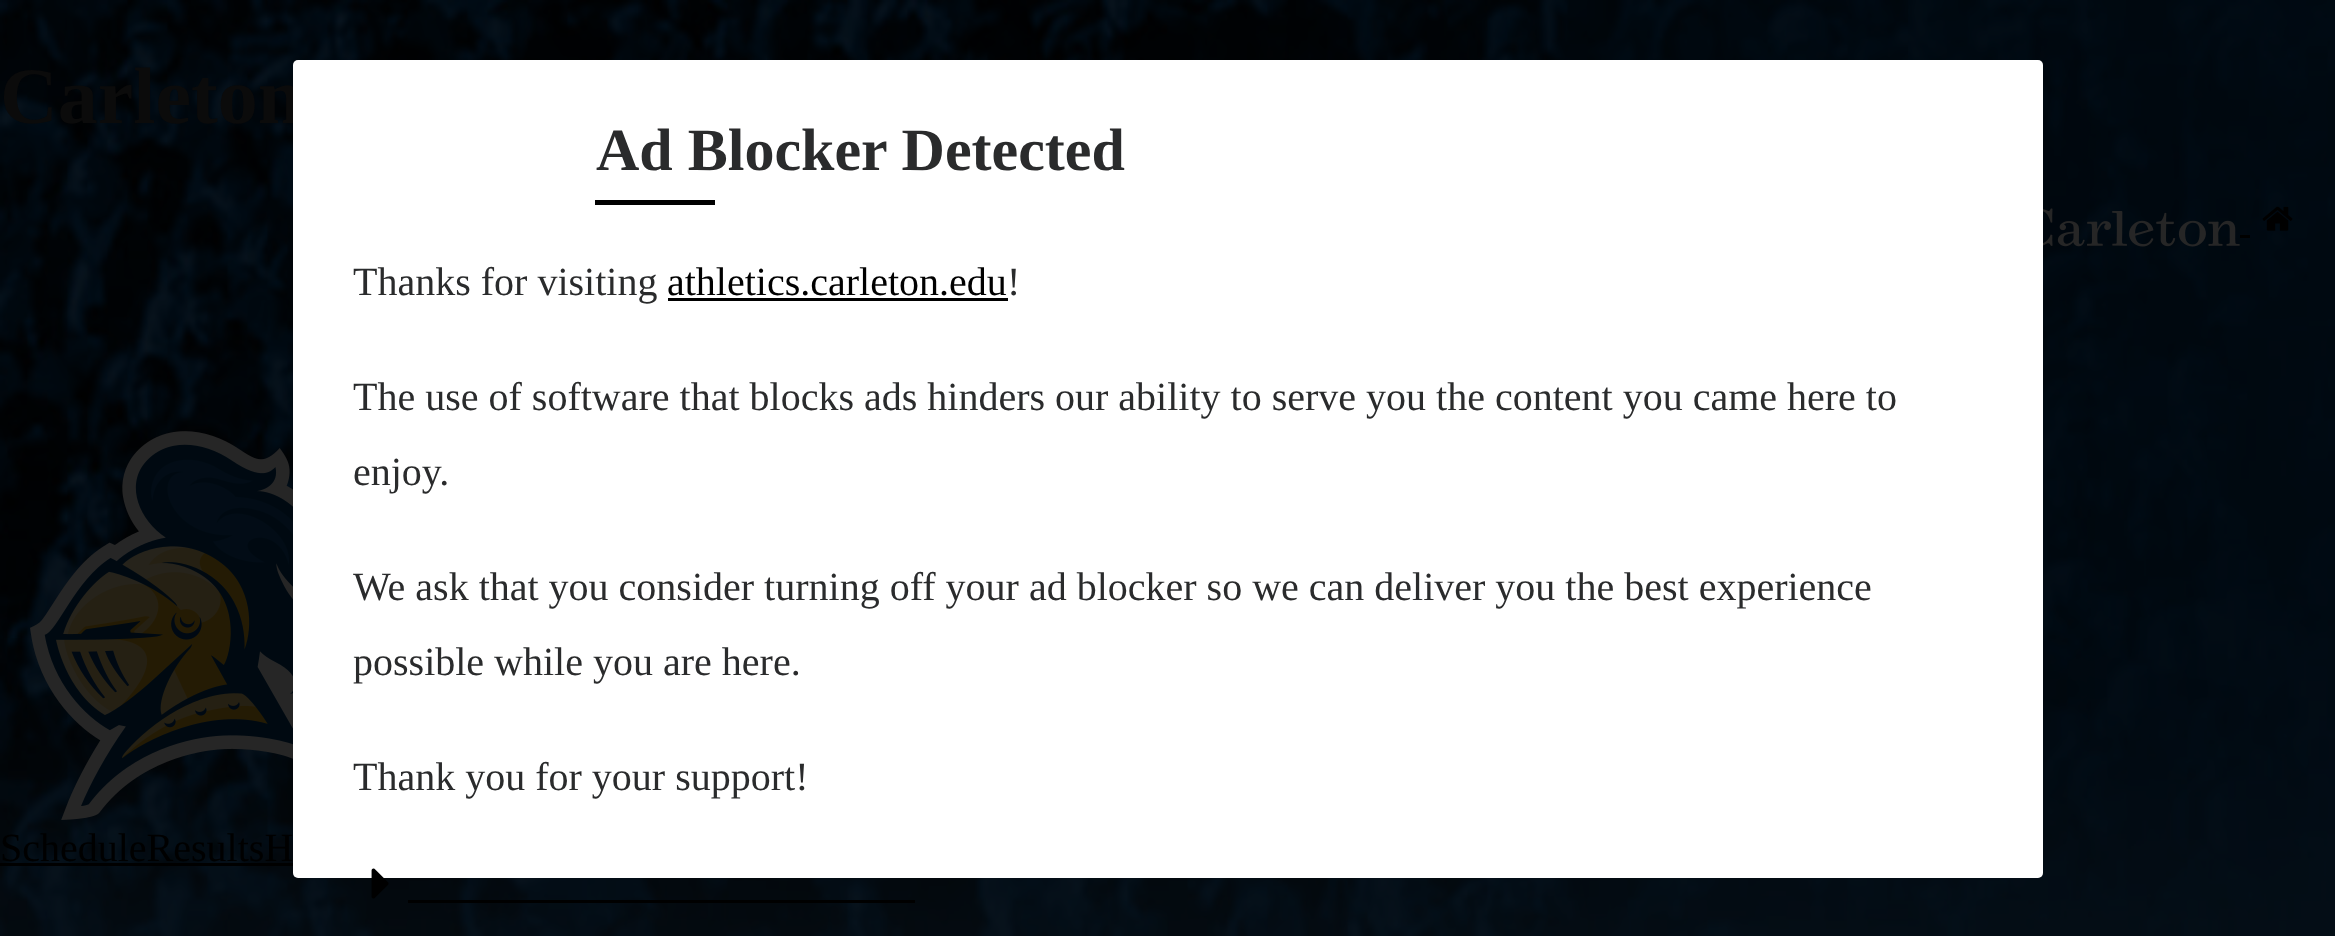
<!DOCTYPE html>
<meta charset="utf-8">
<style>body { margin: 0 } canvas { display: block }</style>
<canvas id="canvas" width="2335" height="936"></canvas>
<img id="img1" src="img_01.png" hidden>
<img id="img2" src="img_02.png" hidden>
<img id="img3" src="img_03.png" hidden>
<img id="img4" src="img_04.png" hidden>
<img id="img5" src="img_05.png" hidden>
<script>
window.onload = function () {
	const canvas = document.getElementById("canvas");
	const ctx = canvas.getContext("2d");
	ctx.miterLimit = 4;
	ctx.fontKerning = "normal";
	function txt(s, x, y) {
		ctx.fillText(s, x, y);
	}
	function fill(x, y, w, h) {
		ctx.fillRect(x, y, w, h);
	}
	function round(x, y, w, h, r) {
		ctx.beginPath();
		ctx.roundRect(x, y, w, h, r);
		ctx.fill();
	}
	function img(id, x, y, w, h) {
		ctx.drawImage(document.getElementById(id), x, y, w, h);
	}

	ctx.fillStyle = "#FFFFFF";
	fill(0, 0, 2335, 936);
	img("img1", 0, 0, 2335, 936);
	img("img2", 2043, 208, 197, 39);
	ctx.fillStyle = "#000000";
	fill(2240, 235, 10, 3);
	img("img3", 2262, 206, 31, 25);
	img("img4", 30, 431, 263, 389);
	fill(408, 900, 507, 3);
	fill(0, 863, 293, 3);
	ctx.font = "bold 80px Liberation Serif";
	ctx.fillStyle = "#0B0B0B";
	txt("Carleton", 0, 123);
	ctx.fillStyle = "#FFFFFF";
	round(293, 60, 1750, 818, 5);
	ctx.font = "bold 60px Liberation Serif";
	ctx.fillStyle = "#2A2B2C";
	txt("Ad Blocker Detected", 596, 170);
	ctx.fillStyle = "#000000";
	fill(595, 200, 120, 5);
	ctx.font = "40px Liberation Serif";
	ctx.fillStyle = "#2A2B2C";
	txt("Thanks for visiting", 353, 295);
	ctx.fillStyle = "#000000";
	txt("athletics.carleton.edu", 667, 295);
	fill(668, 298, 340, 3);
	ctx.fillStyle = "#2A2B2C";
	txt("!", 1007, 295);
	txt("The use of software that blocks ads hinders our ability to serve you the content you came here to", 353, 410);
	txt("enjoy.", 353, 485);
	txt("We ask that you consider turning off your ad blocker so we can deliver you the best experience", 353, 600);
	txt("possible while you are here.", 353, 675);
	txt("Thank you for your support!", 353, 790);
	img("img5", 371, 868, 18, 31);
	ctx.fillStyle = "#000000";
	txt("ScheduleResultsH", 0, 861);
};
</script>
